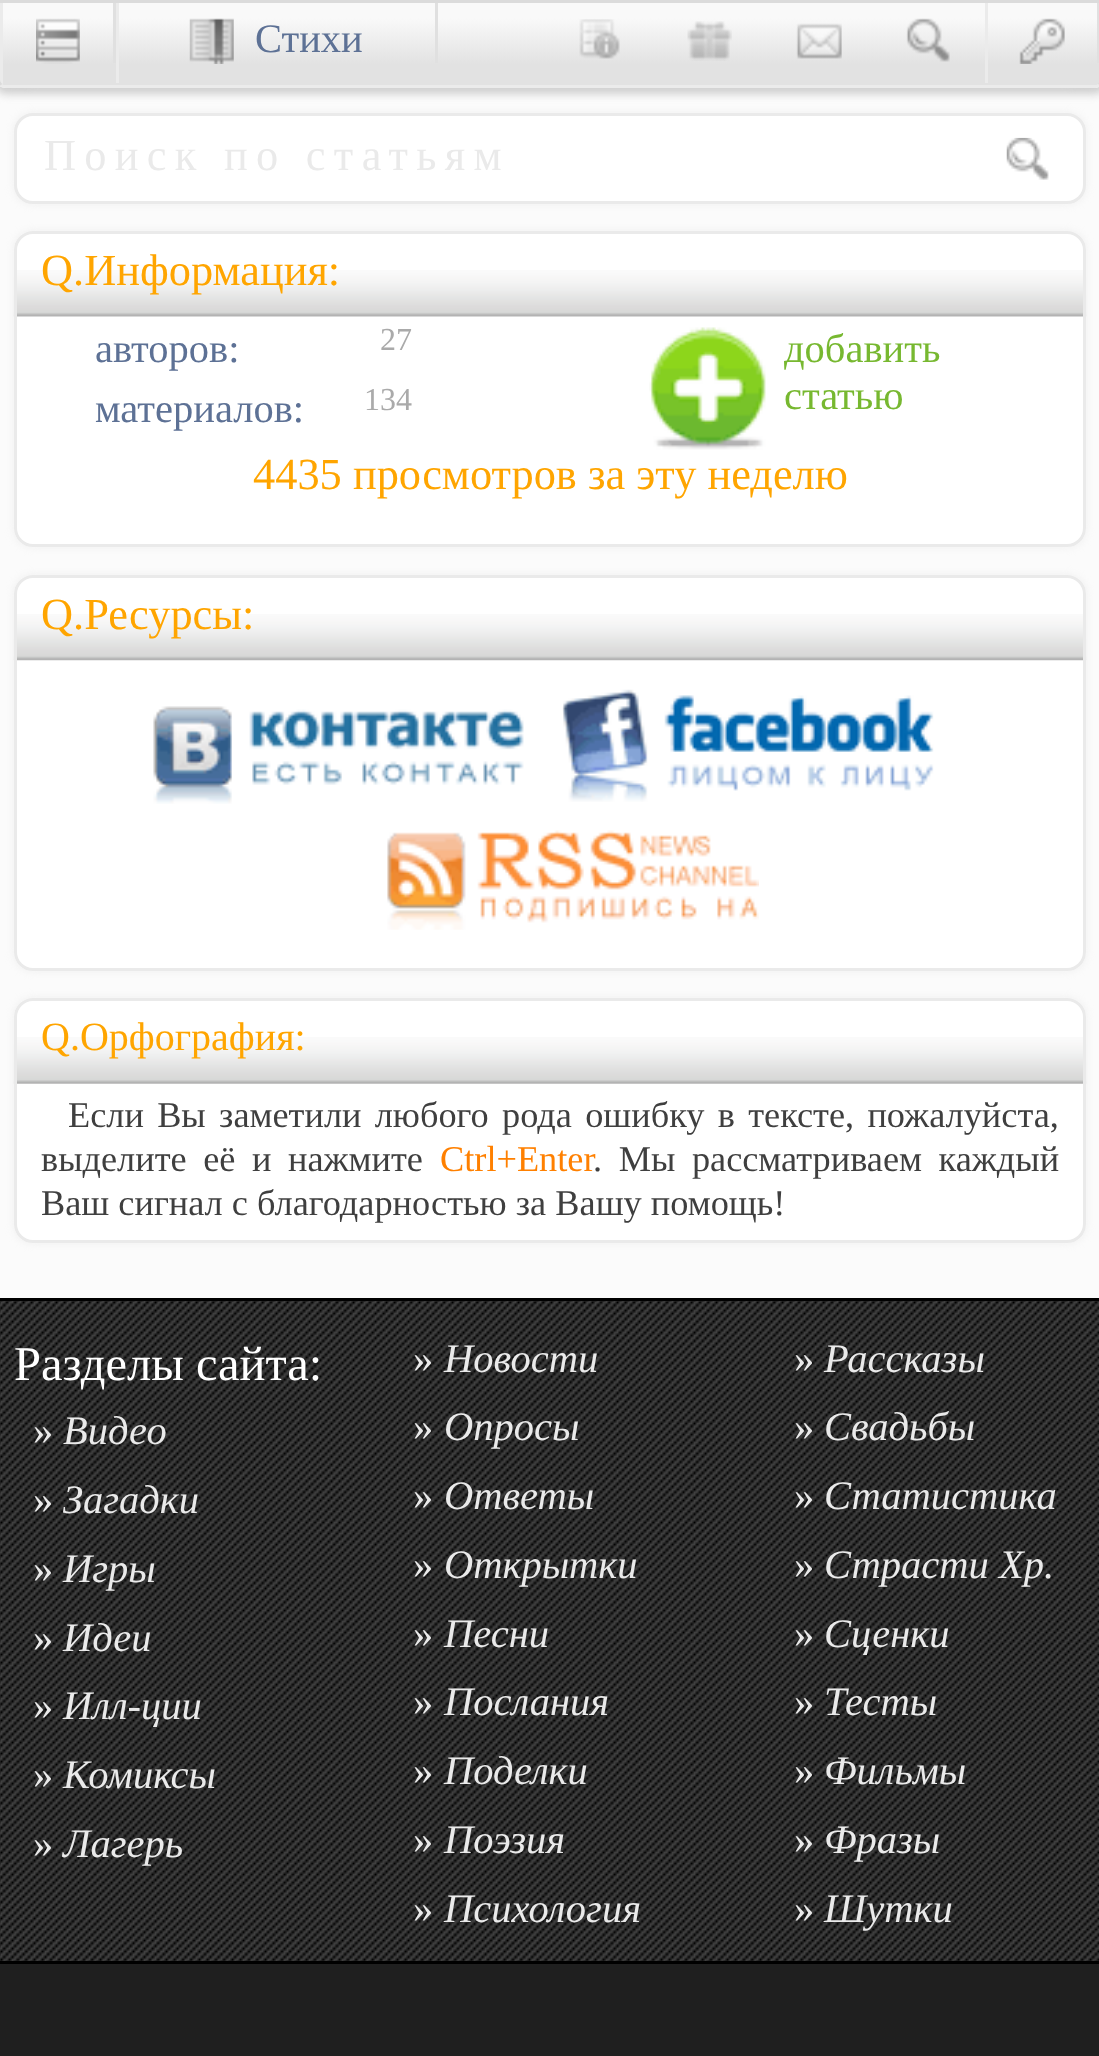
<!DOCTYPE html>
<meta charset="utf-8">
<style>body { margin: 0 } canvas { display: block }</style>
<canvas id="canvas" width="1099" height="2056"></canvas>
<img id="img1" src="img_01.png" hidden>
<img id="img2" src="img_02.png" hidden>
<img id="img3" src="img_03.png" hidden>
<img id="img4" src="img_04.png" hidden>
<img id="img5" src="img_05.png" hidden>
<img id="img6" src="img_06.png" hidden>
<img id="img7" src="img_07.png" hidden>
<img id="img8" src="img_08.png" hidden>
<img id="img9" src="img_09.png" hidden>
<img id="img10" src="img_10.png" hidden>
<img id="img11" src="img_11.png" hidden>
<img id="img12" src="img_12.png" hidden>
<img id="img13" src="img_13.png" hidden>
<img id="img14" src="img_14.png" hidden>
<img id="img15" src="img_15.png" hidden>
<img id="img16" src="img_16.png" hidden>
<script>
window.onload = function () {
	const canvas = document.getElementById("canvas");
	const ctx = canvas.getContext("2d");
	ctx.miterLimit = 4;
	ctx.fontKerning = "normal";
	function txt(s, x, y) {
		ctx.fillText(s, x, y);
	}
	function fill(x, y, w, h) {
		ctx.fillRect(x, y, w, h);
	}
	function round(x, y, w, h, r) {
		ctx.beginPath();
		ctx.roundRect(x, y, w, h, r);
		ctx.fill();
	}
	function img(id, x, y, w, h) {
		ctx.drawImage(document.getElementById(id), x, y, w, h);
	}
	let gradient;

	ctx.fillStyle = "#FBFBFB";
	fill(0, 0, 1099, 2056);
	ctx.fillStyle = "#CECECE";
	ctx.filter = "blur(4px)";
	ctx.beginPath();
	ctx.roundRect(-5, 0, 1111, 94, 11);
	ctx.fill();
	ctx.filter = "none";
	ctx.fillStyle = "rgba(229, 229, 229, 0.5)";
	ctx.filter = "blur(4px)";
	ctx.beginPath();
	ctx.roundRect(14, 3, 1072, 82, 19);
	ctx.fill();
	ctx.filter = "none";
	gradient = ctx.createLinearGradient(550, 2.7, 550, 85);
	gradient.addColorStop(0.19, "#F9F9F9");
	gradient.addColorStop(0.75, "#E2E2E2");
	ctx.fillStyle = gradient;
	fill(0, 3, 1099, 82);
	ctx.save();
	ctx.beginPath();
	ctx.moveTo(-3, 0);
	ctx.lineTo(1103, 0);
	ctx.lineTo(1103, 80);
	ctx.bezierCurveTo(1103, 84.5, 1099.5, 88, 1095, 88);
	ctx.lineTo(5, 88);
	ctx.bezierCurveTo(0.5, 88, -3, 84.5, -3, 80);
	ctx.closePath();
	ctx.clip();
	gradient = ctx.createLinearGradient(550, 85, 550, 168);
	gradient.addColorStop(0.19, "#F9F9F9");
	gradient.addColorStop(0.75, "#E2E2E2");
	ctx.fillStyle = gradient;
	fill(0, 85, 1099, 3);
	ctx.restore();
	ctx.fillStyle = "#DBDBDB";
	ctx.beginPath();
	ctx.moveTo(-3, 0);
	ctx.lineTo(0, 3);
	ctx.lineTo(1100, 3);
	ctx.lineTo(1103, 0);
	ctx.closePath();
	ctx.fill();
	ctx.beginPath();
	ctx.moveTo(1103, 0);
	ctx.lineTo(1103, 82);
	ctx.lineTo(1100, 86);
	ctx.lineTo(1098, 84);
	ctx.lineTo(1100, 81);
	ctx.lineTo(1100, 3);
	ctx.closePath();
	ctx.fill();
	ctx.fillStyle = "#EBEBEB";
	ctx.beginPath();
	ctx.moveTo(6, 88);
	ctx.lineTo(1094, 88);
	ctx.bezierCurveTo(1096, 88, 1099, 87, 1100, 86);
	ctx.lineTo(1098, 84);
	ctx.bezierCurveTo(1097, 85, 1096, 85, 1094, 85);
	ctx.lineTo(6, 85);
	ctx.bezierCurveTo(4, 85, 3, 85, 2, 84);
	ctx.lineTo(0, 86);
	ctx.bezierCurveTo(1, 87, 4, 88, 6, 88);
	ctx.closePath();
	ctx.fill();
	ctx.fillStyle = "#DBDBDB";
	ctx.beginPath();
	ctx.moveTo(0, 3);
	ctx.lineTo(0, 81);
	ctx.lineTo(2, 84);
	ctx.lineTo(0, 86);
	ctx.lineTo(-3, 82);
	ctx.lineTo(-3, 0);
	ctx.closePath();
	ctx.fill();
	ctx.fillStyle = "#E0E0E0";
	fill(113, 3, 3, 60);
	ctx.save();
	ctx.beginPath();
	ctx.moveTo(0, 3);
	ctx.lineTo(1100, 3);
	ctx.lineTo(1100, 79);
	ctx.bezierCurveTo(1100, 82.5, 1097.5, 85, 1094, 85);
	ctx.lineTo(6, 85);
	ctx.bezierCurveTo(2.5, 85, 0, 82.5, 0, 79);
	ctx.closePath();
	ctx.clip();
	ctx.fillStyle = "#EBEBEB";
	fill(0, 3, 3, 80);
	ctx.restore();
	img("img1", 36, 18, 44, 46);
	fill(435, 3, 3, 60);
	ctx.fillStyle = "#EBEBEB";
	fill(116, 3, 3, 80);
	img("img2", 189, 18, 45, 46);
	img("img3", 579, 19, 41, 40);
	img("img4", 687, 21, 45, 40);
	img("img5", 796, 23, 46, 36);
	img("img6", 906, 18, 44, 44);
	ctx.fillStyle = "#E0E0E0";
	fill(1097, 3, 2, 60);
	ctx.fillStyle = "#EBEBEB";
	fill(985, 3, 3, 80);
	img("img7", 1019, 18, 46, 46);
	ctx.save();
	ctx.beginPath();
	ctx.moveTo(0, 3);
	ctx.lineTo(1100, 3);
	ctx.lineTo(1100, 79);
	ctx.bezierCurveTo(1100, 82.5, 1097.5, 85, 1094, 85);
	ctx.lineTo(6, 85);
	ctx.bezierCurveTo(2.5, 85, 0, 82.5, 0, 79);
	ctx.closePath();
	ctx.clip();
	fill(0, 83, 3, 2);
	ctx.restore();
	ctx.fillStyle = "rgba(229, 229, 229, 0.5)";
	ctx.filter = "blur(4px)";
	ctx.beginPath();
	ctx.roundRect(14, 113, 1072, 91, 19);
	ctx.fill();
	ctx.filter = "none";
	ctx.fillStyle = "#FFFFFF";
	ctx.beginPath();
	ctx.roundRect(15.5, 114.5, 1069, 88, 17.5);
	ctx.fill();
	ctx.strokeStyle = "#EAEAEA";
	ctx.lineWidth = 3;
	ctx.stroke();
	img("img8", 1006, 137, 43, 43);
	ctx.fillStyle = "rgba(229, 229, 229, 0.5)";
	ctx.filter = "blur(4px)";
	ctx.beginPath();
	ctx.roundRect(14, 231, 1072, 316, 19);
	ctx.fill();
	ctx.filter = "none";
	ctx.fillStyle = "#FFFFFF";
	round(14, 231, 1072, 316, 19);
	img("img9", 13, 270, 1074, 47);
	ctx.beginPath();
	ctx.roundRect(15.5, 232.5, 1069, 313, 17.5);
	ctx.stroke();
	img("img10", 649, 327, 117, 123);
	ctx.fillStyle = "rgba(229, 229, 229, 0.5)";
	ctx.filter = "blur(4px)";
	ctx.beginPath();
	ctx.roundRect(14, 575, 1072, 396, 19);
	ctx.fill();
	ctx.filter = "none";
	ctx.fillStyle = "#FFFFFF";
	round(14, 575, 1072, 396, 19);
	img("img11", 13, 614, 1074, 47);
	ctx.beginPath();
	ctx.roundRect(15.5, 576.5, 1069, 393, 17.5);
	ctx.stroke();
	img("img12", 153, 706, 371, 98);
	img("img13", 562, 689, 372, 113);
	img("img14", 387, 830, 372, 100);
	ctx.fillStyle = "rgba(229, 229, 229, 0.5)";
	ctx.filter = "blur(4px)";
	ctx.beginPath();
	ctx.roundRect(14, 998, 1072, 245, 19);
	ctx.fill();
	ctx.filter = "none";
	ctx.fillStyle = "#FFFFFF";
	round(14, 998, 1072, 245, 19);
	img("img15", 13, 1037, 1074, 47);
	ctx.beginPath();
	ctx.roundRect(15.5, 999.5, 1069, 242, 17.5);
	ctx.stroke();
	img("img16", 0, 1301, 1099, 660);
	ctx.fillStyle = "#000000";
	fill(0, 1298, 1099, 3);
	fill(0, 1961, 1099, 3);
	ctx.fillStyle = "#1F1F1F";
	fill(0, 1964, 1099, 92);
	ctx.font = "40.5px Liberation Serif";
	ctx.fillStyle = "#5D7195";
	txt("Стихи", 255, 52);
	ctx.letterSpacing = "8.25px";
	ctx.font = "44.4px Liberation Serif";
	ctx.fillStyle = "#EAEAEA";
	txt("Поиск по статьям", 44, 170);
	ctx.letterSpacing = "0px";
	ctx.fillStyle = "#FFA500";
	txt("Q.Информация:", 41, 285);
	ctx.font = "32px Liberation Serif";
	ctx.fillStyle = "#AAAAAA";
	txt("27", 380, 350);
	ctx.font = "40.5px Liberation Serif";
	ctx.fillStyle = "#5D7195";
	txt("авторов:", 95, 362);
	ctx.font = "32px Liberation Serif";
	ctx.fillStyle = "#AAAAAA";
	txt("134", 364, 410);
	ctx.font = "40.5px Liberation Serif";
	ctx.fillStyle = "#5D7195";
	txt("материалов:", 95, 422);
	ctx.fillStyle = "#77B830";
	txt("добавить", 784, 362);
	txt("статью", 784, 409);
	ctx.font = "44.4px Liberation Serif";
	ctx.fillStyle = "#FFA500";
	txt("4435 просмотров за эту неделю", 253, 489);
	txt("Q.Ресурсы:", 41, 629);
	ctx.font = "40px Liberation Serif";
	txt("Q.Орфография:", 41, 1050);
	ctx.wordSpacing = "4.25px";
	ctx.font = "36.3px Liberation Serif";
	ctx.fillStyle = "#3F3F3F";
	txt("Если Вы заметили любого рода ошибку в тексте, пожалуйста,", 68, 1127);
	ctx.wordSpacing = "7.5px";
	txt("выделите её и нажмите", 41, 1171);
	ctx.wordSpacing = "0px";
	ctx.fillStyle = "#FF8000";
	txt("Ctrl+Enter", 440, 1171);
	ctx.wordSpacing = "7.5px";
	ctx.fillStyle = "#3F3F3F";
	txt(". Мы рассматриваем каждый", 593, 1171);
	ctx.wordSpacing = "0px";
	txt("Ваш сигнал с благодарностью за Вашу помощь!", 41, 1215);
	ctx.font = "40.5px Liberation Serif";
	ctx.fillStyle = "#EAEAEA";
	txt("»", 413, 1372);
	ctx.font = "italic 40.5px Liberation Serif";
	txt("Новости", 444, 1372);
	ctx.font = "40.5px Liberation Serif";
	txt("»", 794, 1372);
	ctx.font = "italic 40.5px Liberation Serif";
	txt("Рассказы", 824, 1372);
	ctx.font = "40.5px Liberation Serif";
	txt("»", 33, 1444);
	ctx.font = "italic 40.5px Liberation Serif";
	txt("Видео", 63, 1444);
	ctx.font = "40.5px Liberation Serif";
	txt("»", 413, 1440);
	ctx.font = "italic 40.5px Liberation Serif";
	txt("Опросы", 444, 1440);
	ctx.font = "40.5px Liberation Serif";
	txt("»", 794, 1440);
	ctx.font = "italic 40.5px Liberation Serif";
	txt("Свадьбы", 824, 1440);
	ctx.font = "40.5px Liberation Serif";
	txt("»", 33, 1513);
	ctx.font = "italic 40.5px Liberation Serif";
	txt("Загадки", 63, 1513);
	ctx.font = "40.5px Liberation Serif";
	txt("»", 413, 1509);
	ctx.font = "italic 40.5px Liberation Serif";
	txt("Ответы", 444, 1509);
	ctx.font = "40.5px Liberation Serif";
	txt("»", 794, 1509);
	ctx.font = "italic 40.5px Liberation Serif";
	txt("Статистика", 824, 1509);
	ctx.font = "40.5px Liberation Serif";
	txt("»", 33, 1582);
	ctx.font = "italic 40.5px Liberation Serif";
	txt("Игры", 63, 1582);
	ctx.font = "40.5px Liberation Serif";
	txt("»", 413, 1578);
	ctx.font = "italic 40.5px Liberation Serif";
	txt("Открытки", 444, 1578);
	ctx.font = "40.5px Liberation Serif";
	txt("»", 794, 1578);
	ctx.font = "italic 40.5px Liberation Serif";
	txt("Страсти Хр.", 824, 1578);
	ctx.font = "40.5px Liberation Serif";
	txt("»", 33, 1651);
	ctx.font = "italic 40.5px Liberation Serif";
	txt("Идеи", 63, 1651);
	ctx.font = "40.5px Liberation Serif";
	txt("»", 413, 1647);
	ctx.font = "italic 40.5px Liberation Serif";
	txt("Песни", 444, 1647);
	ctx.font = "40.5px Liberation Serif";
	txt("»", 794, 1647);
	ctx.font = "italic 40.5px Liberation Serif";
	txt("Сценки", 824, 1647);
	ctx.font = "40.5px Liberation Serif";
	txt("»", 33, 1719);
	ctx.font = "italic 40.5px Liberation Serif";
	txt("Илл-ции", 63, 1719);
	ctx.font = "40.5px Liberation Serif";
	txt("»", 413, 1715);
	ctx.font = "italic 40.5px Liberation Serif";
	txt("Послания", 444, 1715);
	ctx.font = "40.5px Liberation Serif";
	txt("»", 794, 1715);
	ctx.font = "italic 40.5px Liberation Serif";
	txt("Тесты", 824, 1715);
	ctx.font = "40.5px Liberation Serif";
	txt("»", 33, 1788);
	ctx.font = "italic 40.5px Liberation Serif";
	txt("Комиксы", 63, 1788);
	ctx.font = "40.5px Liberation Serif";
	txt("»", 413, 1784);
	ctx.font = "italic 40.5px Liberation Serif";
	txt("Поделки", 444, 1784);
	ctx.font = "40.5px Liberation Serif";
	txt("»", 794, 1784);
	ctx.font = "italic 40.5px Liberation Serif";
	txt("Фильмы", 824, 1784);
	ctx.font = "40.5px Liberation Serif";
	txt("»", 33, 1857);
	ctx.font = "italic 40.5px Liberation Serif";
	txt("Лагерь", 63, 1857);
	ctx.font = "40.5px Liberation Serif";
	txt("»", 413, 1853);
	ctx.font = "italic 40.5px Liberation Serif";
	txt("Поэзия", 444, 1853);
	ctx.font = "40.5px Liberation Serif";
	txt("»", 794, 1853);
	ctx.font = "italic 40.5px Liberation Serif";
	txt("Фразы", 824, 1853);
	ctx.font = "40.5px Liberation Serif";
	txt("»", 413, 1922);
	ctx.font = "italic 40.5px Liberation Serif";
	txt("Психология", 444, 1922);
	ctx.font = "40.5px Liberation Serif";
	txt("»", 794, 1922);
	ctx.font = "italic 40.5px Liberation Serif";
	txt("Шутки", 824, 1922);
	ctx.font = "48.5px Liberation Serif";
	ctx.fillStyle = "#FFFFFF";
	txt("Разделы сайта:", 14, 1380);
};
</script>
